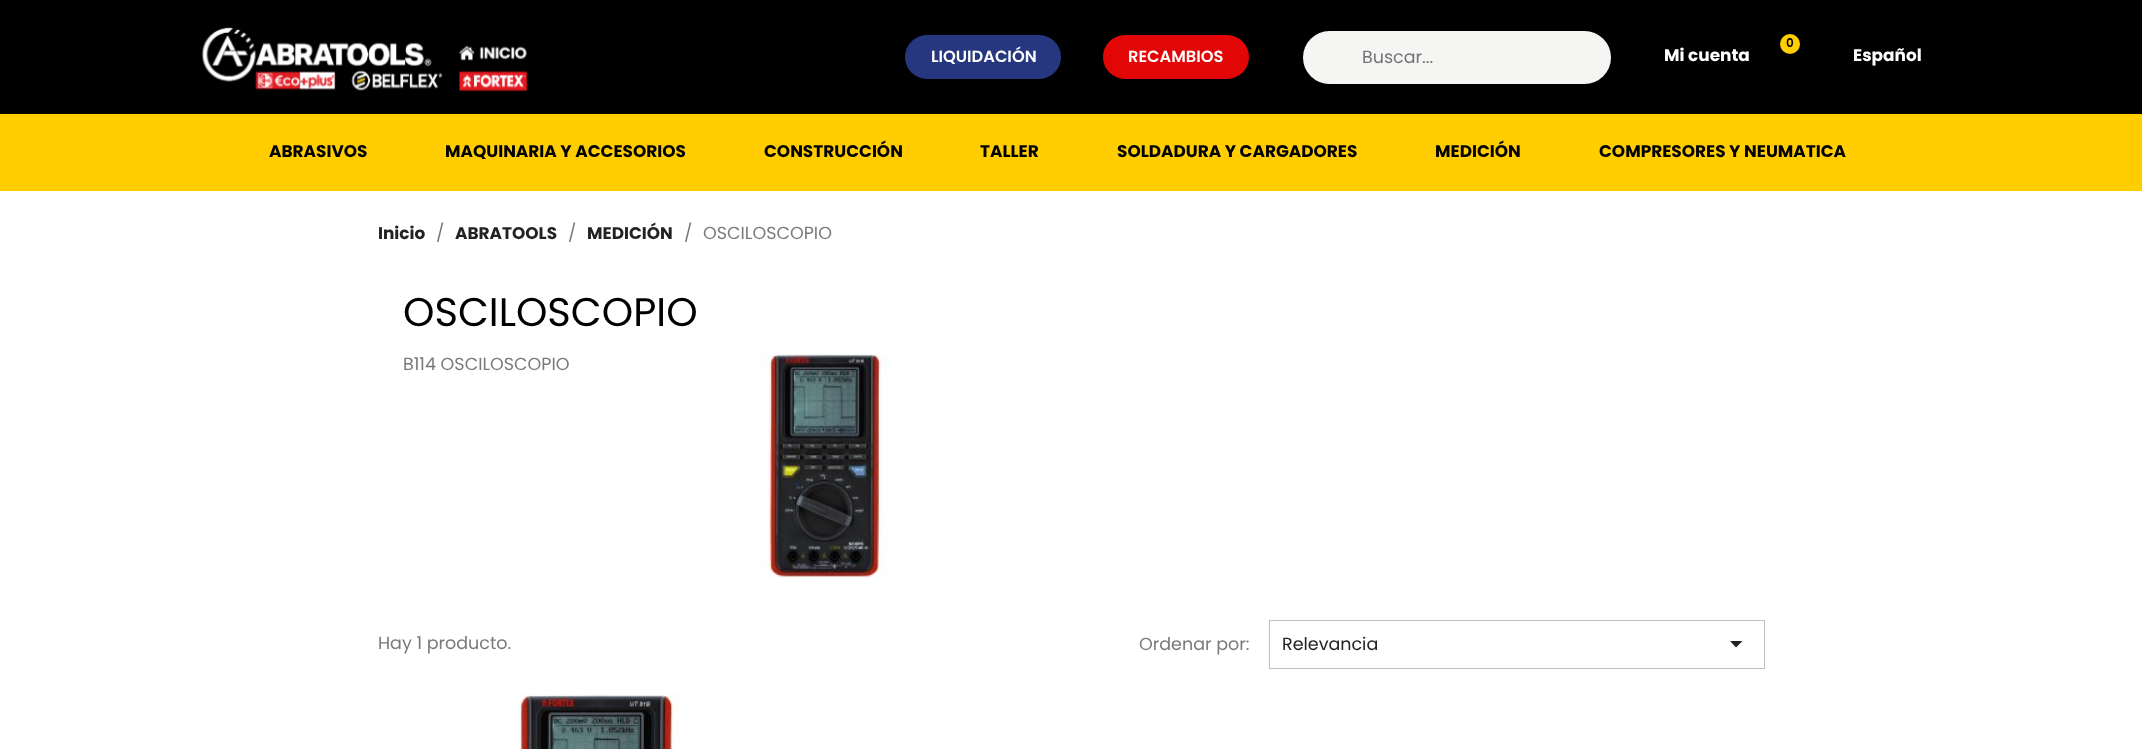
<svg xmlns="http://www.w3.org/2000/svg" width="2142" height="749">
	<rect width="100%" height="100%" fill="#FFFFFF" />
	<rect x="0" y="0" width="2142" height="114" fill="#000000" />
	<image x="201" y="27" width="327" height="65" href="assets/img1.png" />
	<rect x="905" y="35" width="156" height="44" rx="22" fill="#263780" />
	<text x="931" y="62" font-family="Poppins" font-size="16.25" font-weight="600" fill="#FFFFFF">LIQUIDACIÓN</text>
	<rect x="1103" y="35" width="146" height="44" rx="22" fill="#E30606" />
	<text x="1128" y="62" font-family="Poppins" font-size="16.25" font-weight="600" fill="#FFFFFF">RECAMBIOS</text>
	<circle cx="1790" cy="44" r="10" fill="#FFCD00" />
	<text x="1786" y="47" font-family="Poppins" font-size="12" font-weight="600" fill="#000000">0</text>
	<rect x="1303" y="31" width="308" height="53" rx="26.5" fill="#F5F6F4" />
	<text x="1362" y="63" font-family="Poppins" font-size="17.5" fill="#737474">Buscar...</text>
	<g font-family="Poppins" font-size="16.9" font-weight="700" fill="#FFFFFF">
		<text x="1664" y="61">Mi cuenta</text>
		<text x="1853" y="61">Español</text>
	</g>
	<rect x="0" y="114" width="2142" height="77" fill="#FFCD00" />
	<g font-family="Poppins" font-size="16.9" font-weight="700" fill="#000000">
		<text x="269" y="157">ABRASIVOS</text>
		<text x="445" y="157">MAQUINARIA Y ACCESORIOS</text>
		<text x="764" y="157">CONSTRUCCIÓN</text>
		<text x="980" y="157">TALLER</text>
		<text x="1117" y="157">SOLDADURA Y CARGADORES</text>
		<text x="1435" y="157">MEDICIÓN</text>
		<text x="1599" y="157">COMPRESORES Y NEUMATICA</text>
	</g>
	<text x="378" y="239" font-family="Poppins" font-size="16.9" font-weight="700" fill="#232323">Inicio</text>
	<text x="436" y="239" font-family="Poppins" font-size="17.5" fill="#7A7A7A">/</text>
	<text x="455" y="239" font-family="Poppins" font-size="16.9" font-weight="700" fill="#232323">ABRATOOLS</text>
	<text x="568" y="239" font-family="Poppins" font-size="17.5" fill="#7A7A7A">/</text>
	<text x="587" y="239" font-family="Poppins" font-size="16.9" font-weight="700" fill="#232323">MEDICIÓN</text>
	<g font-family="Poppins" font-size="17.5" fill="#7A7A7A">
		<text x="684" y="239">/</text>
		<text x="703" y="239">OSCILOSCOPIO</text>
	</g>
	<text x="403" y="326" font-family="Poppins" font-size="40" fill="#000000">OSCILOSCOPIO</text>
	<text x="403" y="370" font-family="Poppins" font-size="17.5" fill="#7A7A7A">B114 OSCILOSCOPIO</text>
	<image x="758" y="353" width="134" height="226" href="assets/img2.png" />
	<g font-family="Poppins" font-size="17.5" fill="#7A7A7A">
		<text x="378" y="649">Hay 1 producto.</text>
		<text x="1139" y="650">Ordenar por:</text>
	</g>
	<rect x="1269.5" y="620.5" width="495" height="48" fill="none" stroke="#BFBFBF" />
	<text x="1282" y="650" font-family="Poppins" font-size="17.5" fill="#232323">Relevancia</text>
	<path d="M1730 641H1742.5L1736 647.5Z" fill="#232323" />
	<image x="519" y="694" width="162" height="55" href="assets/img3.png" />
</svg>
